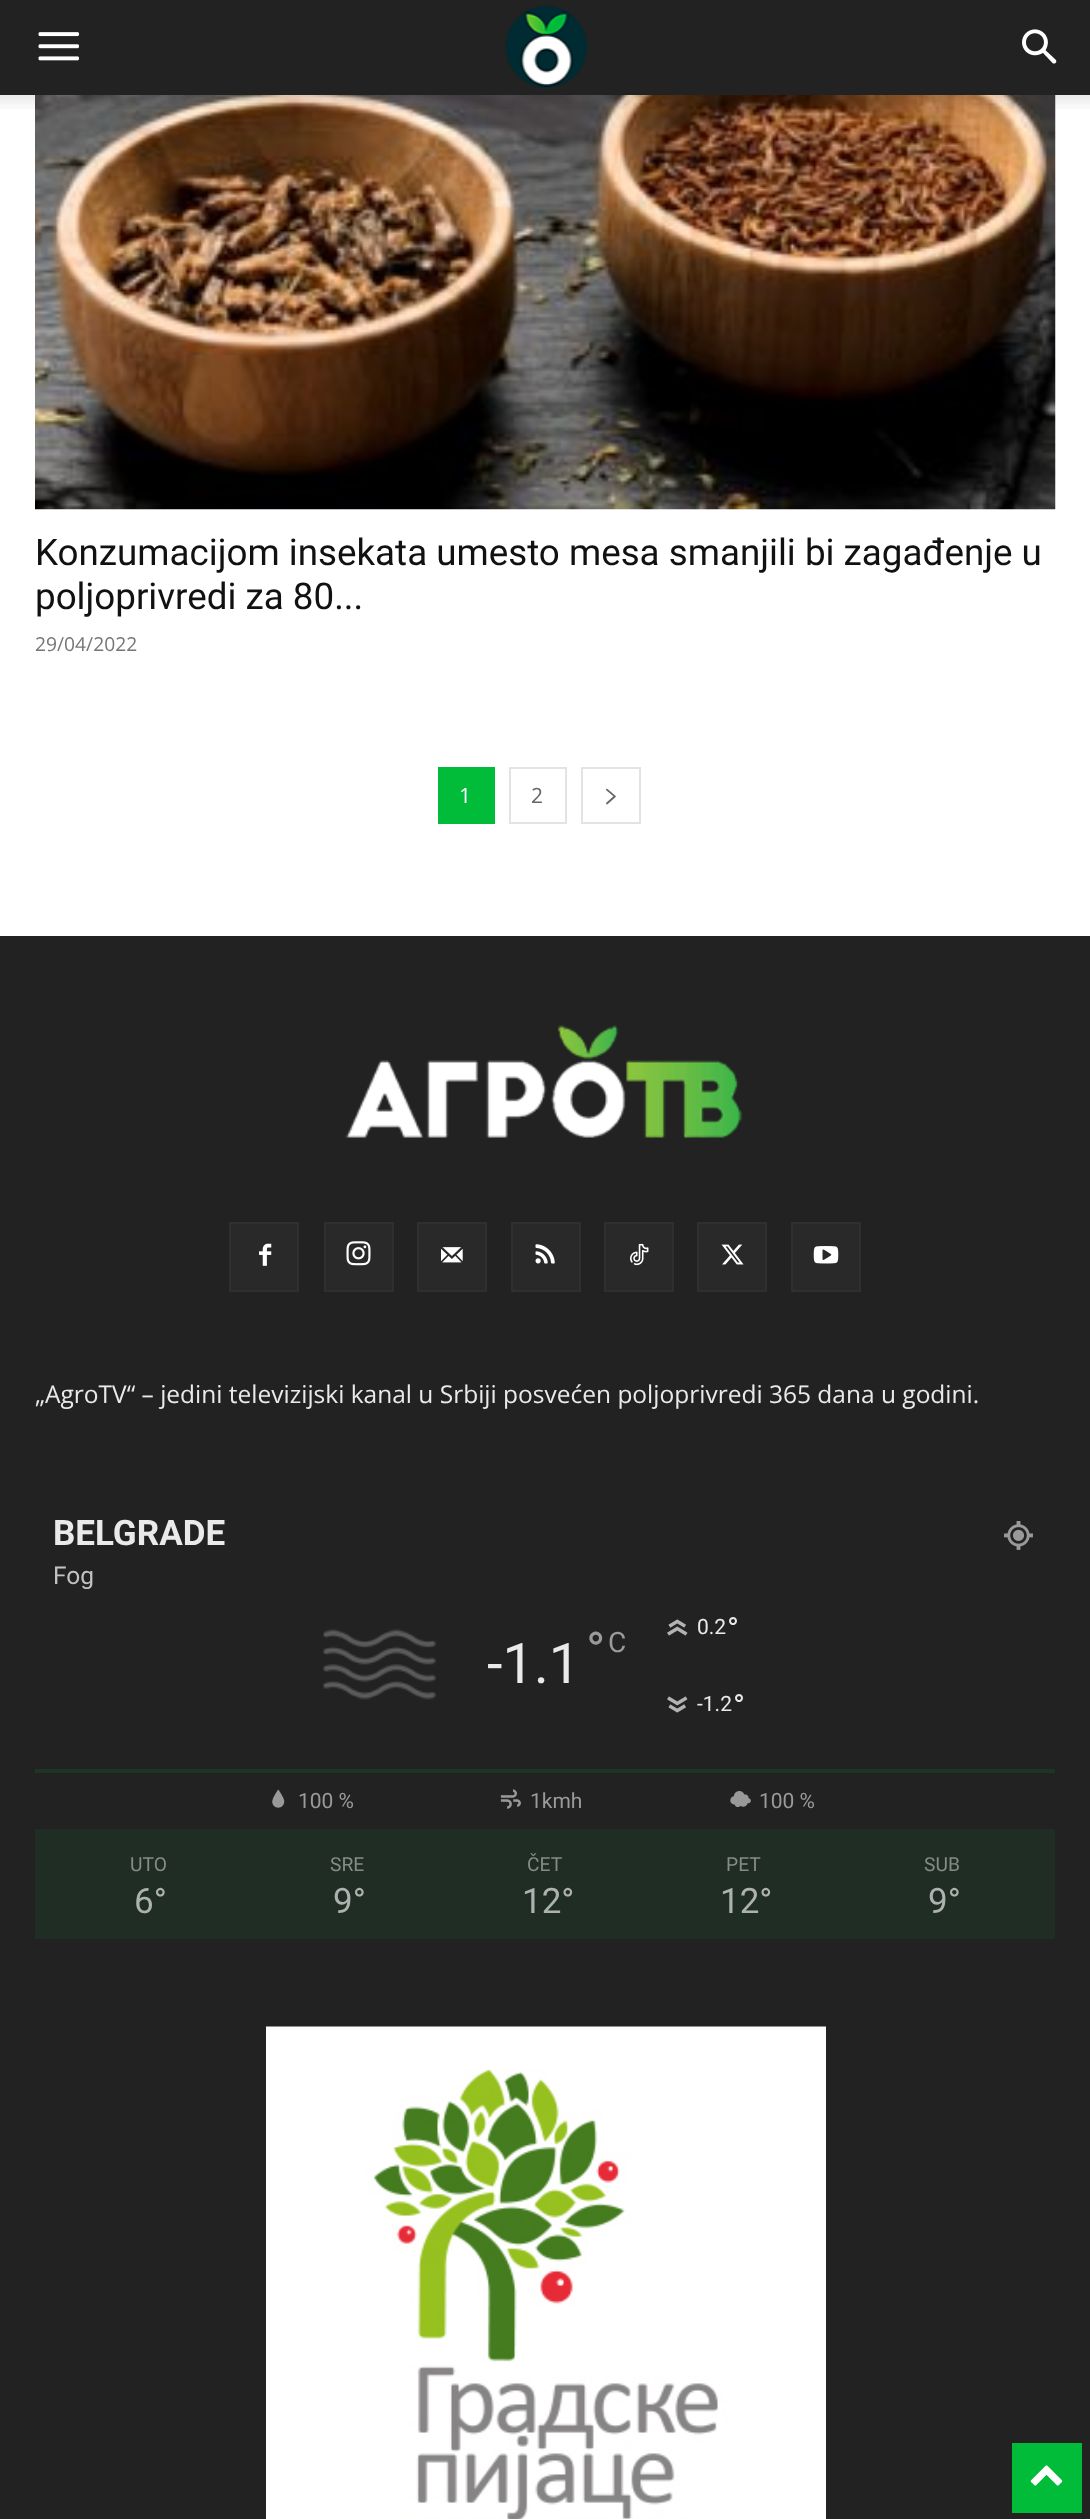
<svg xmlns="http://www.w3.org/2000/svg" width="1090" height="2519">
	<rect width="100%" height="100%" fill="#FFFFFF" />
	<rect x="0" y="0" width="1090" height="95" fill="#222222" />
	<image x="38" y="32" width="41" height="29" href="assets/img1.png" />
	<image x="505" y="5" width="83" height="83" href="assets/img2.png" />
	<image x="1022" y="29" width="35" height="35" href="assets/img3.png" />
	<image x="35" y="95" width="1021" height="415" href="assets/img5.png" />
	<image x="0" y="95" width="1090" height="14" href="assets/img4.png" />
	<g font-family="Roboto" font-size="36.75" fill="#111111">
		<text x="35" y="565">Konzumacijom insekata umesto mesa smanjili bi zagađenje u</text>
		<text x="35" y="609">poljoprivredi za 80...</text>
	</g>
	<text x="35" y="651" font-family="Open Sans" font-size="19.25" fill="#767676">29/04/2022</text>
	<rect x="438" y="767" width="57" height="57" fill="#00BC39" />
	<text x="459" y="803" font-family="Open Sans" font-size="21" fill="#FFFFFF">1</text>
	<rect x="510" y="768" width="56" height="55" fill="none" stroke="#E3E3E3" stroke-width="2" />
	<text x="531" y="803" font-family="Open Sans" font-size="21" fill="#666666">2</text>
	<rect x="582" y="768" width="58" height="55" fill="none" stroke="#E3E3E3" stroke-width="2" />
	<image x="606" y="788" width="10" height="17" href="assets/img6.png" />
	<rect x="0" y="936" width="1090" height="1583" fill="#222222" />
	<image x="344" y="1025" width="399" height="113" href="assets/img7.png" />
	<rect x="231" y="1224" width="66" height="66" fill="#292929" />
	<image x="259" y="1243" width="13" height="23" href="assets/img8.png" />
	<rect x="230" y="1223" width="68" height="68" fill="none" stroke="#2F2F2F" stroke-width="2" />
	<rect x="326" y="1224" width="66" height="66" fill="#292929" />
	<image x="346" y="1241" width="25" height="25" href="assets/img9.png" />
	<rect x="325" y="1223" width="68" height="68" fill="none" stroke="#2F2F2F" stroke-width="2" />
	<rect x="419" y="1224" width="66" height="66" fill="#292929" />
	<image x="441" y="1247" width="22" height="16" href="assets/img10.png" />
	<rect x="418" y="1223" width="68" height="68" fill="none" stroke="#2F2F2F" stroke-width="2" />
	<rect x="513" y="1224" width="66" height="66" fill="#292929" />
	<image x="535" y="1244" width="20" height="20" href="assets/img11.png" />
	<rect x="512" y="1223" width="68" height="68" fill="none" stroke="#2F2F2F" stroke-width="2" />
	<rect x="606" y="1224" width="66" height="66" fill="#292929" />
	<image x="630" y="1243" width="19" height="23" href="assets/img12.png" />
	<rect x="605" y="1223" width="68" height="68" fill="none" stroke="#2F2F2F" stroke-width="2" />
	<rect x="699" y="1224" width="66" height="66" fill="#292929" />
	<image x="721" y="1244" width="23" height="21" href="assets/img13.png" />
	<rect x="698" y="1223" width="68" height="68" fill="none" stroke="#2F2F2F" stroke-width="2" />
	<rect x="793" y="1224" width="66" height="66" fill="#292929" />
	<image x="813" y="1246" width="26" height="18" href="assets/img14.png" />
	<rect x="792" y="1223" width="68" height="68" fill="none" stroke="#2F2F2F" stroke-width="2" />
	<text x="35" y="1403" font-family="Open Sans" font-size="24.5" fill="#EAEAEA">„AgroTV“ – jedini televizijski kanal u Srbiji posvećen poljoprivredi 365 dana u godini.</text>
	<text x="53" y="1545" font-family="Roboto" font-size="35" font-weight="700" fill="#EAEAEA">BELGRADE</text>
	<image x="1004" y="1521" width="29" height="29" href="assets/img15.png" />
	<text x="53" y="1584" font-family="Roboto" font-size="24.5" fill="#C2C2C2">Fog</text>
	<image x="323" y="1629" width="114" height="71" href="assets/img16.png" />
	<text x="487" y="1683" font-family="Roboto" font-size="56" fill="#EAEAEA">-1.1</text>
	<text x="586" y="1669" font-family="Roboto" font-size="52" fill="#9A9A9A">°</text>
	<text x="608" y="1652" font-family="Roboto" font-size="28" fill="#9A9A9A">C</text>
	<image x="667" y="1619" width="21" height="17" href="assets/img17.png" />
	<text x="697" y="1634" font-family="Roboto" font-size="21" fill="#EAEAEA">0.2</text>
	<text x="727" y="1640" font-family="Roboto" font-size="32" fill="#EAEAEA">°</text>
	<image x="667" y="1696" width="21" height="17" href="assets/img18.png" />
	<text x="697" y="1711" font-family="Roboto" font-size="21" fill="#EAEAEA">-1.2</text>
	<text x="733" y="1717" font-family="Roboto" font-size="32" fill="#EAEAEA">°</text>
	<rect x="35" y="1769" width="1020" height="4" fill="#1E3425" />
	<image x="272" y="1789" width="13" height="19" href="assets/img19.png" />
	<text x="298" y="1808" font-family="Roboto" font-size="21" fill="#9A9A9A">100 %</text>
	<image x="500" y="1789" width="21" height="20" href="assets/img20.png" />
	<text x="530" y="1808" font-family="Roboto" font-size="21" fill="#9A9A9A">1kmh</text>
	<image x="730" y="1791" width="21" height="16" href="assets/img21.png" />
	<text x="759" y="1808" font-family="Roboto" font-size="21" fill="#9A9A9A">100 %</text>
	<rect x="35" y="1829" width="1020" height="110" fill="#202D24" />
	<text x="130" y="1871" font-family="Roboto" font-size="19.25" fill="#858C87">UTO</text>
	<text x="134" y="1913" font-family="Roboto" font-size="35" fill="#ADB1AF">6°</text>
	<text x="330" y="1871" font-family="Roboto" font-size="19.25" fill="#858C87">SRE</text>
	<text x="333" y="1913" font-family="Roboto" font-size="35" fill="#ADB1AF">9°</text>
	<text x="527" y="1871" font-family="Roboto" font-size="19.25" fill="#858C87">ČET</text>
	<text x="522" y="1913" font-family="Roboto" font-size="35" fill="#ADB1AF">12°</text>
	<text x="726" y="1871" font-family="Roboto" font-size="19.25" fill="#858C87">PET</text>
	<text x="720" y="1913" font-family="Roboto" font-size="35" fill="#ADB1AF">12°</text>
	<text x="924" y="1871" font-family="Roboto" font-size="19.25" fill="#858C87">SUB</text>
	<text x="928" y="1913" font-family="Roboto" font-size="35" fill="#ADB1AF">9°</text>
	<image x="266" y="2026" width="560" height="493" href="assets/img22.png" />
	<rect x="1012" y="2443" width="70" height="70" fill="#00BC39" />
	<image x="1030" y="2465" width="33" height="21" href="assets/img23.png" />
</svg>
